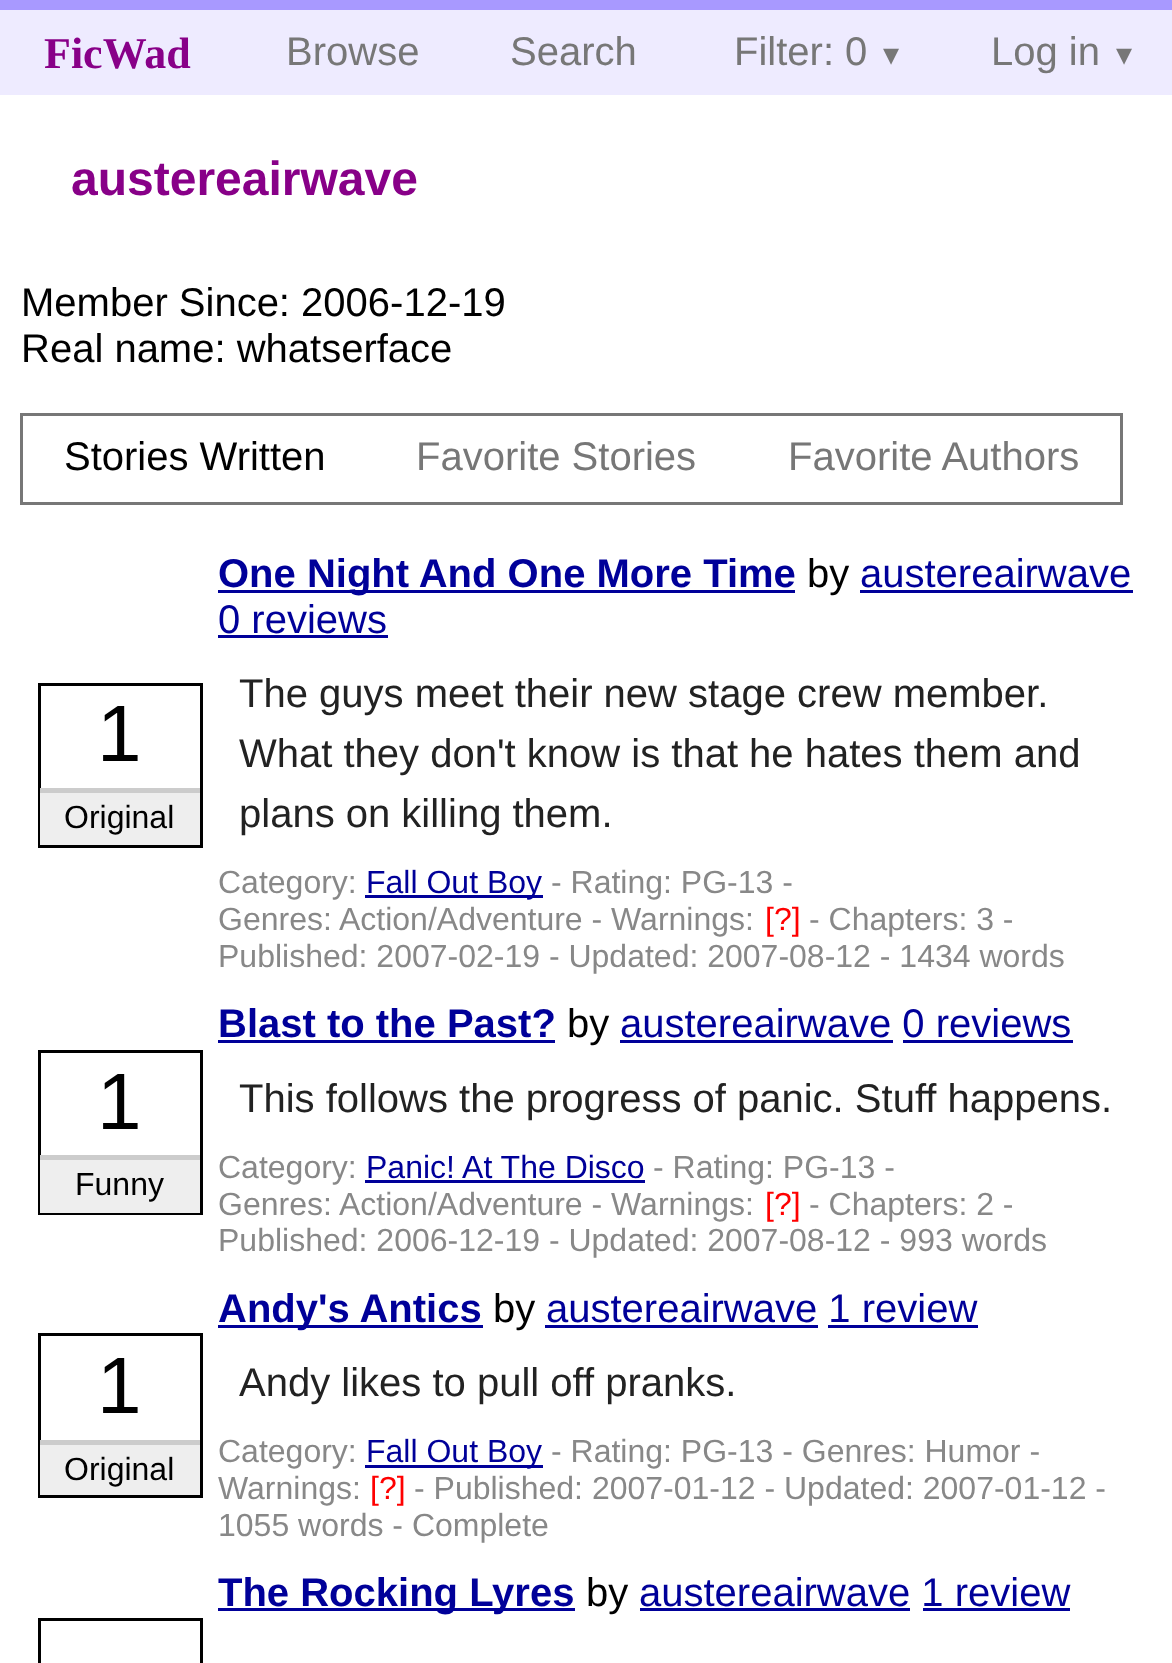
<svg xmlns="http://www.w3.org/2000/svg" width="1172" height="1663">
	<rect width="100%" height="100%" fill="#FFFFFF" />
	<rect x="0" y="10" width="1172" height="85" fill="#EEEBFF" />
	<rect x="0" y="0" width="1172" height="10" fill="#A899FF" />
	<text x="44" y="68" font-family="Liberation Serif" font-size="44" font-weight="700" fill="#880088">FicWad</text>
	<g font-family="Liberation Sans" font-size="40" fill="#777777">
		<text x="286" y="65">Browse</text>
		<text x="510" y="65">Search</text>
		<text x="734" y="65">Filter: 0</text>
	</g>
	<text x="883" y="65" font-family="DejaVu Sans" font-size="32" fill="#777777">▾</text>
	<text x="991" y="65" font-family="Liberation Sans" font-size="40" fill="#777777">Log in</text>
	<text x="1116" y="65" font-family="DejaVu Sans" font-size="32" fill="#777777">▾</text>
	<text x="71" y="195" font-family="Liberation Sans" font-size="48" font-weight="700" fill="#880088">austereairwave</text>
	<g font-family="Liberation Sans" font-size="40" fill="#000000">
		<text x="21" y="316">Member Since: 2006-12-19</text>
		<text x="21" y="362">Real name: whatserface</text>
	</g>
	<rect x="21.5" y="414.5" width="1100" height="89" fill="none" stroke="#777777" stroke-width="3" />
	<text x="64" y="470" font-family="Liberation Sans" font-size="40" fill="#000000">Stories Written</text>
	<g font-family="Liberation Sans" font-size="40" fill="#777777">
		<text x="416" y="470">Favorite Stories</text>
		<text x="788" y="470">Favorite Authors</text>
	</g>
	<rect x="218" y="590" width="577" height="3" fill="#000099" />
	<text x="218" y="587" font-family="Liberation Sans" font-size="40" font-weight="700" fill="#000099">One Night And One More Time</text>
	<text x="807" y="587" font-family="Liberation Sans" font-size="40" fill="#000000">by</text>
	<text x="860" y="587" font-family="Liberation Sans" font-size="40" fill="#000099">austereairwave</text>
	<rect x="860" y="590" width="273" height="3" fill="#000099" />
	<text x="218" y="633" font-family="Liberation Sans" font-size="40" fill="#000099">0 reviews</text>
	<rect x="218" y="635" width="170" height="3" fill="#000099" />
	<rect x="39.5" y="684.5" width="162" height="162" fill="none" stroke="#000000" stroke-width="3" />
	<text x="97" y="761" font-family="Liberation Sans" font-size="80" fill="#000000">1</text>
	<rect x="40" y="793" width="160" height="52" fill="#EEEEEE" />
	<rect x="40" y="788" width="160" height="5" fill="#CCCCCC" />
	<text x="64" y="828" font-family="Liberation Sans" font-size="32" fill="#000000">Original</text>
	<g font-family="Liberation Sans" font-size="40" fill="#222222">
		<text x="239" y="707">The guys meet their new stage crew member.</text>
		<text x="239" y="767">What they don't know is that he hates them and</text>
		<text x="239" y="827">plans on killing them.</text>
	</g>
	<text x="218" y="893" font-family="Liberation Sans" font-size="32" fill="#888888">Category:</text>
	<rect x="365" y="895" width="178" height="3" fill="#000099" />
	<text x="366" y="893" font-family="Liberation Sans" font-size="32" fill="#000099">Fall Out Boy</text>
	<g font-family="Liberation Sans" font-size="32" fill="#888888">
		<text x="551" y="893">- Rating: PG-13 -</text>
		<text x="218" y="930">Genres: Action/Adventure - Warnings:</text>
	</g>
	<text x="765" y="930" font-family="Liberation Sans" font-size="32" fill="#FF0000">[?]</text>
	<g font-family="Liberation Sans" font-size="32" fill="#888888">
		<text x="809" y="930">- Chapters: 3 -</text>
		<text x="218" y="967">Published: 2007-02-19 - Updated: 2007-08-12 - 1434 words</text>
	</g>
	<text x="218" y="1037" font-family="Liberation Sans" font-size="40" font-weight="700" fill="#000099">Blast to the Past?</text>
	<rect x="218" y="1040" width="337" height="3" fill="#000099" />
	<text x="567" y="1037" font-family="Liberation Sans" font-size="40" fill="#000000">by</text>
	<text x="620" y="1037" font-family="Liberation Sans" font-size="40" fill="#000099">austereairwave 0 reviews</text>
	<rect x="620" y="1040" width="273" height="3" fill="#000099" />
	<rect x="903" y="1040" width="170" height="3" fill="#000099" />
	<rect x="39.5" y="1051.5" width="162" height="162" fill="none" stroke="#000000" stroke-width="3" />
	<text x="97" y="1129" font-family="Liberation Sans" font-size="80" fill="#000000">1</text>
	<rect x="40" y="1160" width="160" height="53" fill="#EEEEEE" />
	<rect x="40" y="1155" width="160" height="5" fill="#CCCCCC" />
	<text x="75" y="1195" font-family="Liberation Sans" font-size="32" fill="#000000">Funny</text>
	<text x="239" y="1112" font-family="Liberation Sans" font-size="40" fill="#222222">This follows the progress of panic. Stuff happens.</text>
	<text x="218" y="1178" font-family="Liberation Sans" font-size="32" fill="#888888">Category:</text>
	<text x="366" y="1178" font-family="Liberation Sans" font-size="32" fill="#000099">Panic! At The Disco</text>
	<rect x="365" y="1180" width="280" height="3" fill="#000099" />
	<g font-family="Liberation Sans" font-size="32" fill="#888888">
		<text x="653" y="1178">- Rating: PG-13 -</text>
		<text x="218" y="1215">Genres: Action/Adventure - Warnings:</text>
	</g>
	<text x="765" y="1215" font-family="Liberation Sans" font-size="32" fill="#FF0000">[?]</text>
	<g font-family="Liberation Sans" font-size="32" fill="#888888">
		<text x="809" y="1215">- Chapters: 2 -</text>
		<text x="218" y="1251">Published: 2006-12-19 - Updated: 2007-08-12 - 993 words</text>
	</g>
	<rect x="218" y="1325" width="265" height="3" fill="#000099" />
	<text x="218" y="1322" font-family="Liberation Sans" font-size="40" font-weight="700" fill="#000099">Andy's Antics</text>
	<text x="493" y="1322" font-family="Liberation Sans" font-size="40" fill="#000000">by</text>
	<text x="546" y="1322" font-family="Liberation Sans" font-size="40" fill="#000099">austereairwave 1 review</text>
	<rect x="545" y="1325" width="273" height="3" fill="#000099" />
	<rect x="828" y="1325" width="150" height="3" fill="#000099" />
	<rect x="39.5" y="1334.5" width="162" height="162" fill="none" stroke="#000000" stroke-width="3" />
	<text x="97" y="1413" font-family="Liberation Sans" font-size="80" fill="#000000">1</text>
	<rect x="40" y="1445" width="160" height="50" fill="#EEEEEE" />
	<rect x="40" y="1440" width="160" height="5" fill="#CCCCCC" />
	<text x="64" y="1480" font-family="Liberation Sans" font-size="32" fill="#000000">Original</text>
	<text x="239" y="1396" font-family="Liberation Sans" font-size="40" fill="#222222">Andy likes to pull off pranks.</text>
	<text x="218" y="1462" font-family="Liberation Sans" font-size="32" fill="#888888">Category:</text>
	<rect x="365" y="1465" width="178" height="3" fill="#000099" />
	<text x="366" y="1462" font-family="Liberation Sans" font-size="32" fill="#000099">Fall Out Boy</text>
	<g font-family="Liberation Sans" font-size="32" fill="#888888">
		<text x="551" y="1462">- Rating: PG-13 - Genres: Humor -</text>
		<text x="218" y="1499">Warnings:</text>
	</g>
	<text x="370" y="1499" font-family="Liberation Sans" font-size="32" fill="#FF0000">[?]</text>
	<g font-family="Liberation Sans" font-size="32" fill="#888888">
		<text x="414" y="1499">- Published: 2007-01-12 - Updated: 2007-01-12 -</text>
		<text x="218" y="1536">1055 words - Complete</text>
	</g>
	<rect x="218" y="1608" width="357" height="3" fill="#000099" />
	<text x="218" y="1606" font-family="Liberation Sans" font-size="40" font-weight="700" fill="#000099">The Rocking Lyres</text>
	<text x="586" y="1606" font-family="Liberation Sans" font-size="40" fill="#000000">by</text>
	<text x="639" y="1606" font-family="Liberation Sans" font-size="40" fill="#000099">austereairwave 1 review</text>
	<rect x="640" y="1608" width="270" height="3" fill="#000099" />
	<rect x="923" y="1608" width="147" height="3" fill="#000099" />
	<rect x="39.5" y="1619.5" width="162" height="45" fill="none" stroke="#000000" stroke-width="3" />
</svg>
